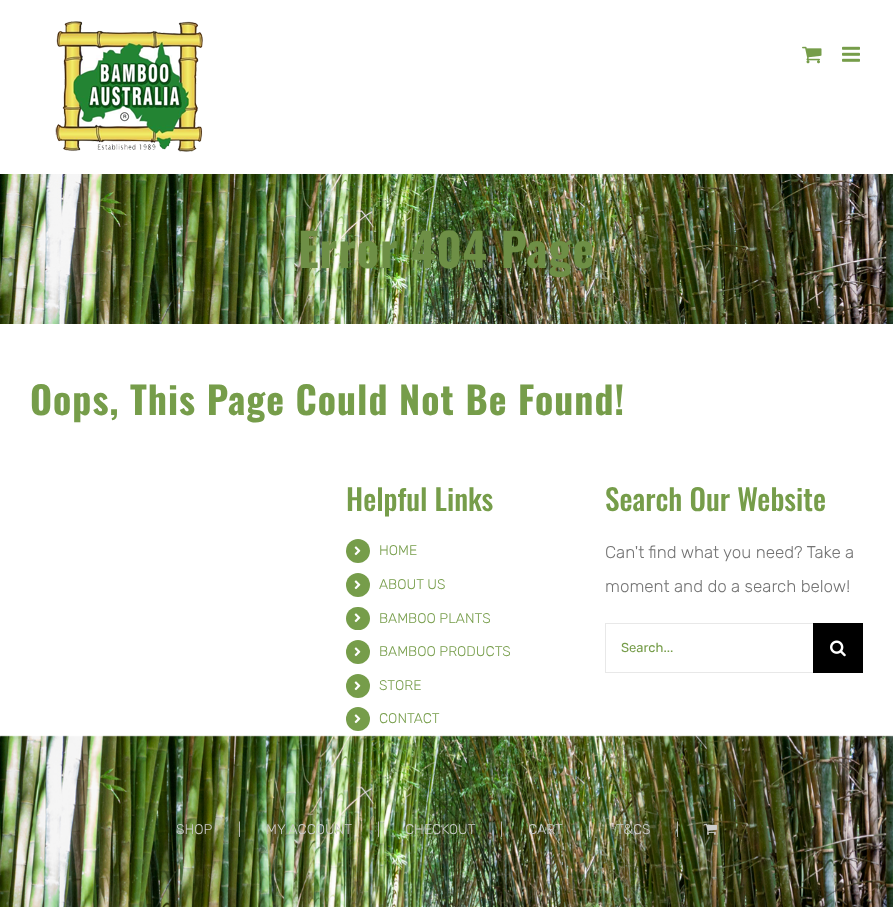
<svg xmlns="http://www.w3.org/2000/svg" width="893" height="907">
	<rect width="100%" height="100%" fill="#FFFFFF" />
	<image x="55" y="21" width="148" height="131" href="assets/img1.png" />
	<image x="802" y="46" width="20" height="18" href="assets/img2.png" />
	<image x="842" y="46" width="18" height="16" href="assets/img3.png" />
	<image x="0" y="174" width="893" height="150" href="assets/img4.png" />
	<text x="298" y="268" font-family="Oswald" font-size="46" font-weight="700" letter-spacing="1" fill="#6E8F46">Error 404 Page</text>
	<text x="30" y="415" font-family="Oswald" font-size="37.75" font-weight="700" letter-spacing="1" fill="#769D4A">Oops, This Page Could Not Be Found!</text>
	<text x="346" y="511" font-family="Oswald" font-size="29.25" font-weight="500" fill="#769D4A">Helpful Links</text>
	<circle cx="358" cy="551" r="12" fill="#769D4A" />
	<image x="354" y="546" width="7" height="10" href="assets/img5.png" />
	<text x="379" y="555" font-family="Rubik" font-size="14" font-weight="300" fill="#769D4A">HOME</text>
	<circle cx="358" cy="585" r="12" fill="#769D4A" />
	<image x="354" y="580" width="7" height="10" href="assets/img5.png" />
	<text x="379" y="589" font-family="Rubik" font-size="14" font-weight="300" fill="#769D4A">ABOUT US</text>
	<rect x="346" y="607" width="24" height="23" rx="11.5" fill="#769D4A" />
	<image x="354" y="613" width="7" height="10" href="assets/img5.png" />
	<text x="379" y="623" font-family="Rubik" font-size="14" font-weight="300" fill="#769D4A">BAMBOO PLANTS</text>
	<circle cx="358" cy="652" r="12" fill="#769D4A" />
	<image x="354" y="647" width="7" height="10" href="assets/img5.png" />
	<text x="379" y="656" font-family="Rubik" font-size="14" font-weight="300" fill="#769D4A">BAMBOO PRODUCTS</text>
	<circle cx="358" cy="686" r="12" fill="#769D4A" />
	<image x="354" y="681" width="7" height="10" href="assets/img5.png" />
	<text x="379" y="690" font-family="Rubik" font-size="14" font-weight="300" fill="#769D4A">STORE</text>
	<circle cx="358" cy="719" r="12" fill="#769D4A" />
	<image x="354" y="714" width="7" height="10" href="assets/img5.png" />
	<text x="379" y="723" font-family="Rubik" font-size="14" font-weight="300" fill="#769D4A">CONTACT</text>
	<text x="605" y="511" font-family="Oswald" font-size="29.25" font-weight="500" fill="#769D4A">Search Our Website</text>
	<g font-family="Rubik" font-size="17" font-weight="300" fill="#747474">
		<text x="605" y="558">Can't find what you need? Take a</text>
		<text x="605" y="592">moment and do a search below!</text>
	</g>
	<rect x="605" y="623" width="208" height="1" fill="#E8E8E8" />
	<rect x="605" y="672" width="208" height="1" fill="#E8E8E8" />
	<rect x="605" y="623" width="1" height="50" fill="#E8E8E8" />
	<text x="621" y="652" font-family="Rubik" font-size="13" fill="#769D4A">Search...</text>
	<rect x="813" y="623" width="50" height="50" fill="#000000" />
	<image x="830" y="640" width="16" height="17" href="assets/img6.png" />
	<image x="0" y="735" width="893" height="172" href="assets/img7.png" />
	<g font-family="Rubik" font-size="14" font-weight="300" fill="#CCCCCC">
		<text x="176" y="834">SHOP</text>
		<text x="238" y="834">|</text>
		<text x="266" y="834">MY ACCOUNT</text>
		<text x="377" y="834">|</text>
		<text x="405" y="834">CHECKOUT</text>
		<text x="500" y="834">|</text>
		<text x="528" y="834">CART</text>
		<text x="588" y="834">|</text>
		<text x="616" y="834">T&amp;CS</text>
		<text x="676" y="834">|</text>
	</g>
	<image x="704" y="823" width="13" height="12" href="assets/img8.png" />
</svg>
